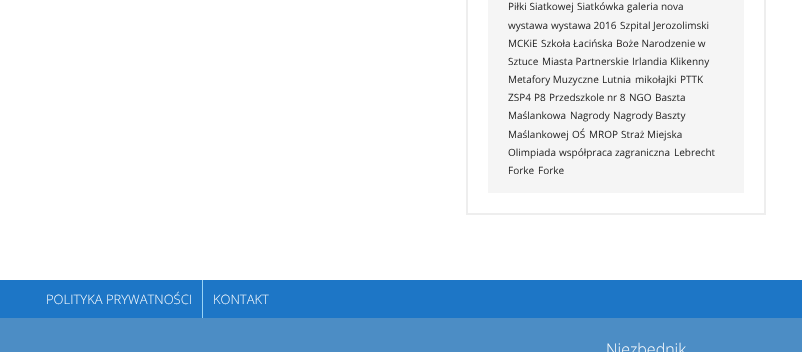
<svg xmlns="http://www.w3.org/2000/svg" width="802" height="352">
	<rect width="100%" height="100%" fill="#FFFFFF" />
	<rect x="467" y="-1" width="298" height="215" fill="none" stroke="#EEEEEE" stroke-width="2" />
	<rect x="488" y="0" width="256" height="193" fill="#F5F5F5" />
	<g font-family="Open Sans" font-size="10" fill="#222222">
		<text x="508" y="10">Piłki Siatkowej</text>
		<text x="577" y="10">Siatkówka</text>
		<text x="627" y="10">galeria nova</text>
		<text x="508" y="29">wystawa</text>
		<text x="551" y="29">wystawa 2016</text>
		<text x="620" y="29">Szpital Jerozolimski</text>
		<text x="508" y="47">MCKiE</text>
		<text x="541" y="47">Szkoła Łacińska</text>
		<text x="616" y="47">Boże Narodzenie w</text>
		<text x="508" y="65">Sztuce</text>
		<text x="542" y="65">Miasta Partnerskie</text>
		<text x="632" y="65">Irlandia Klikenny</text>
		<text x="508" y="83">Metafory Muzyczne</text>
		<text x="602" y="83">Lutnia</text>
		<text x="635" y="83">mikołajki</text>
		<text x="680" y="83">PTTK</text>
		<text x="508" y="101">ZSP4</text>
		<text x="534" y="101">P8</text>
		<text x="549" y="101">Przedszkole nr 8</text>
		<text x="629" y="101">NGO</text>
		<text x="655" y="101">Baszta</text>
		<text x="508" y="119">Maślankowa</text>
		<text x="570" y="119">Nagrody</text>
		<text x="613" y="119">Nagrody Baszty</text>
		<text x="508" y="138">Maślankowej</text>
		<text x="572" y="138">OŚ</text>
		<text x="589" y="138">MROP</text>
		<text x="621" y="138">Straż Miejska</text>
		<text x="508" y="156">Olimpiada</text>
		<text x="559" y="156">współpraca zagraniczna</text>
		<text x="674" y="156">Lebrecht</text>
		<text x="508" y="174">Forke</text>
		<text x="538" y="174">Forke</text>
	</g>
	<rect x="0" y="280" width="802" height="38" fill="#1D76C6" />
	<text x="46" y="304" font-family="Open Sans" font-size="13" font-weight="300" fill="#FFFFFF">POLITYKA PRYWATNOŚCI</text>
	<rect x="202" y="280" width="1" height="38" fill="#99D4F6" />
	<text x="213" y="304" font-family="Open Sans" font-size="13" font-weight="300" fill="#FFFFFF">KONTAKT</text>
	<rect x="0" y="318" width="802" height="34" fill="#4C8DC5" />
	<text x="606" y="355" font-family="Open Sans" font-size="16" font-weight="300" fill="#FFFFFF">Niezbędnik</text>
</svg>
